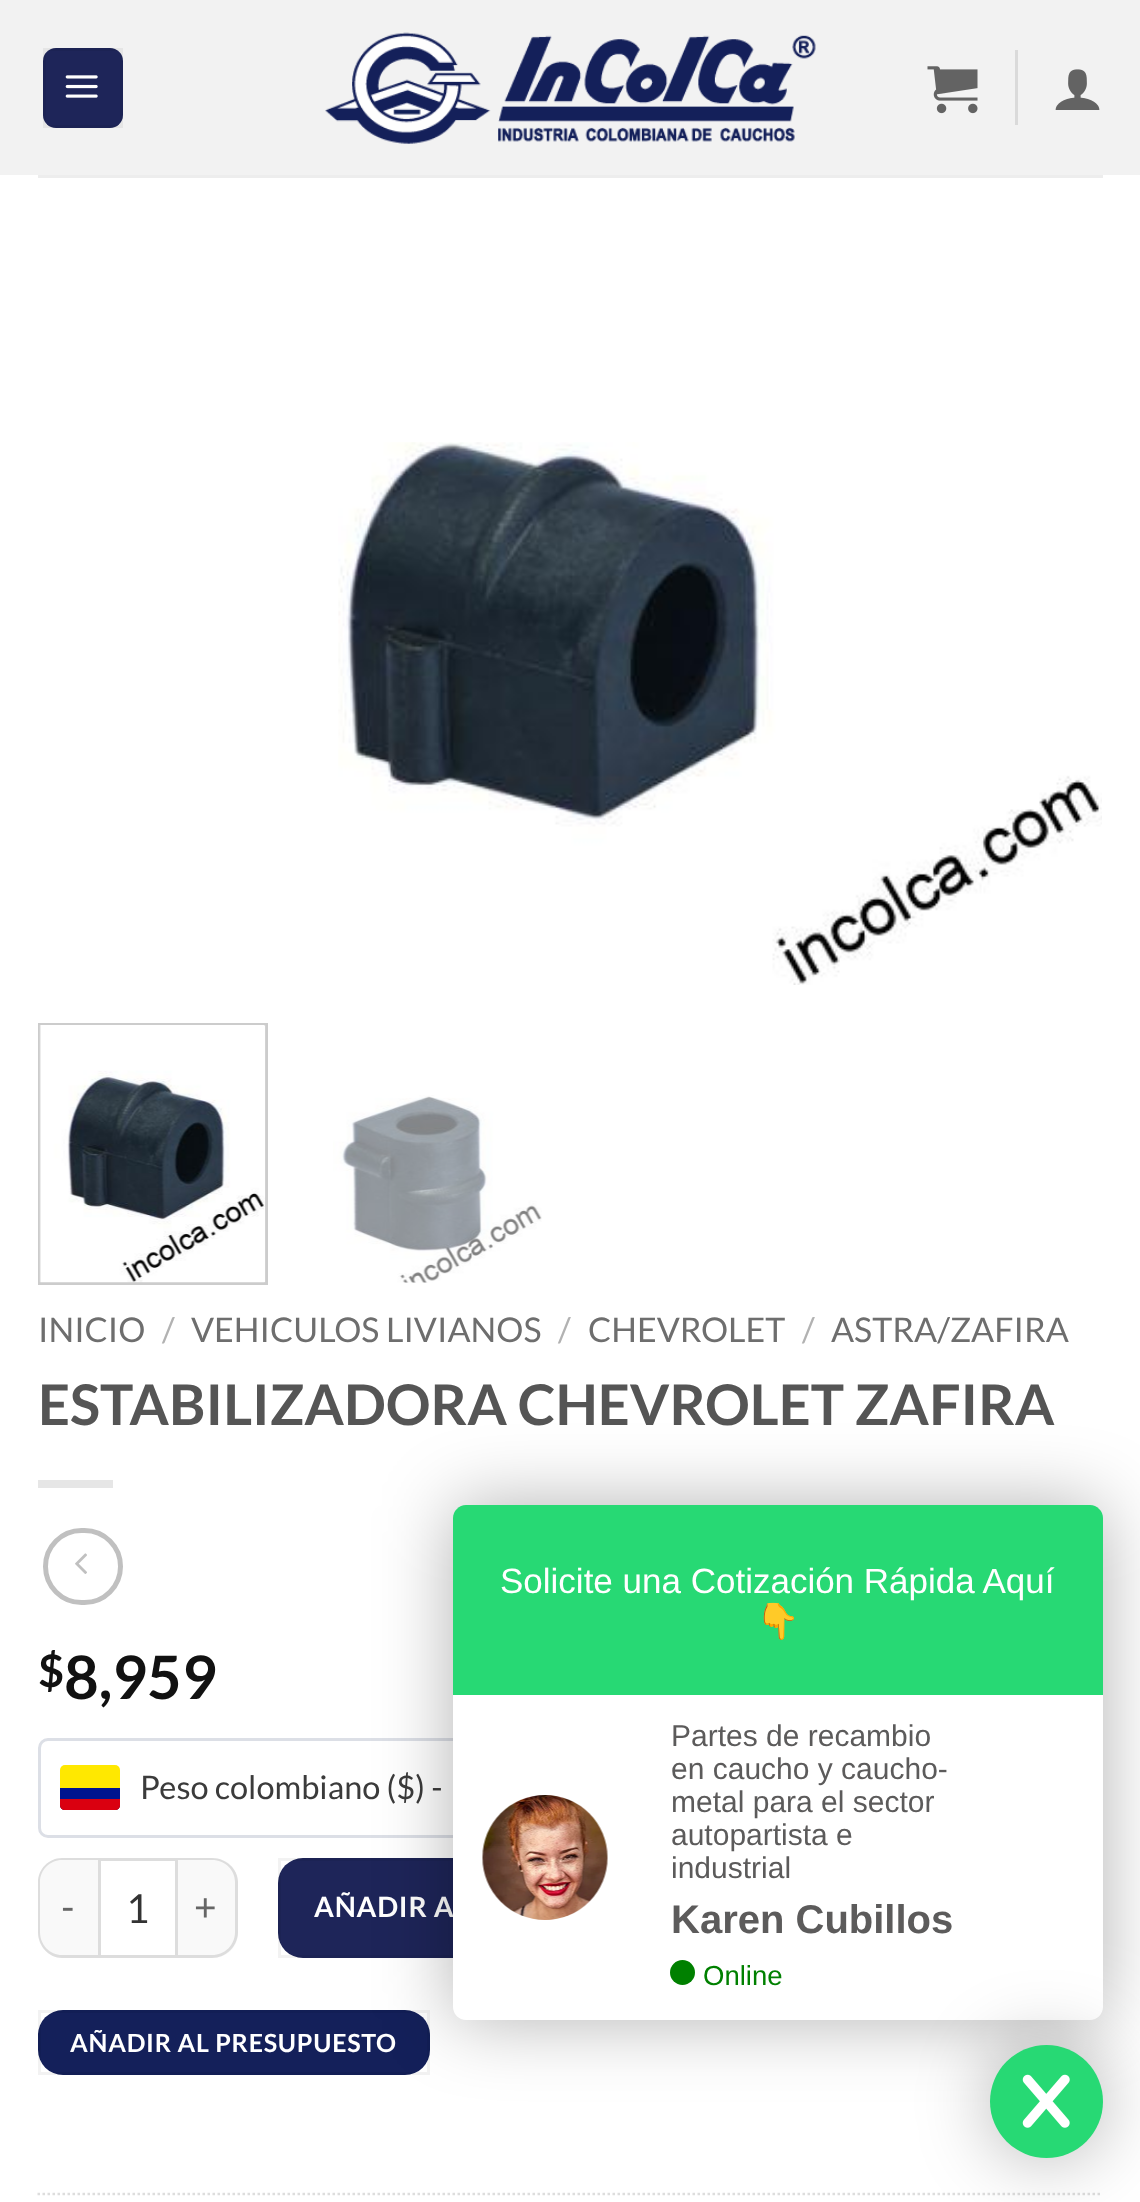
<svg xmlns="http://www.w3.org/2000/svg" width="1140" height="2202">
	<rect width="100%" height="100%" fill="#FFFFFF" />
	<rect x="0" y="0" width="1140" height="175" fill="#F2F2F2" />
	<rect x="43" y="48" width="80" height="80" rx="13" fill="#1E2559" />
	<rect x="44.5" y="49.5" width="77" height="77" fill="none" stroke="#000000" stroke-opacity="0.05" stroke-width="3" />
	<image x="65" y="75" width="33" height="23" href="assets/img1.png" />
	<image x="325" y="32" width="491" height="112" href="assets/img2.png" />
	<image x="927" y="66" width="51" height="48" href="assets/img3.png" />
	<rect x="1015" y="50" width="3" height="75" fill="#DADADA" />
	<image x="1055" y="69" width="45" height="41" href="assets/img4.png" />
	<rect x="38" y="175" width="1065" height="3" fill="#EDEDED" />
	<image x="338" y="442" width="764" height="543" href="assets/img5.png" />
	<rect x="39.5" y="1024.5" width="227" height="259" fill="none" stroke="#CCCCCC" stroke-width="3" />
	<image x="39" y="1025" width="227" height="258" href="assets/img6.png" />
	<image x="333" y="1095" width="209" height="188" href="assets/img7.png" />
	<text x="38" y="1342" font-family="Lato" font-size="34" fill="#6E6E6E">INICIO</text>
	<text x="162" y="1342" font-family="Lato" font-size="34" fill="#B2B2B2">/</text>
	<text x="191" y="1342" font-family="Lato" font-size="34" fill="#6E6E6E">VEHICULOS LIVIANOS</text>
	<text x="558" y="1342" font-family="Lato" font-size="34" fill="#B2B2B2">/</text>
	<text x="588" y="1342" font-family="Lato" font-size="34" fill="#6E6E6E">CHEVROLET</text>
	<text x="802" y="1342" font-family="Lato" font-size="34" fill="#B2B2B2">/</text>
	<text x="831" y="1342" font-family="Lato" font-size="34" fill="#6E6E6E">ASTRA/ZAFIRA</text>
	<text x="38" y="1425" font-family="Lato" font-size="56" font-weight="700" fill="#555555">ESTABILIZADORA CHEVROLET ZAFIRA</text>
	<rect x="38" y="1480" width="75" height="8" fill="#E6E6E6" />
	<rect x="45.5" y="1530.5" width="75" height="72" rx="36" fill="none" stroke="#C0C0C0" stroke-width="5" />
	<image x="75" y="1553" width="12" height="21" href="assets/img8.png" />
	<text x="38" y="1687" font-family="Lato" font-size="45" font-weight="700" fill="#111111">$</text>
	<text x="64" y="1699" font-family="Lato" font-size="60" font-weight="700" fill="#111111">8,959</text>
	<rect x="39.5" y="1739.5" width="672" height="97" rx="8.5" fill="none" stroke="#DCDFE6" stroke-width="3" />
	<rect x="60" y="1765" width="60" height="45" rx="5" fill="#FFE800" />
	<path d="M60 1788H120V1805C120 1808 118 1810 115 1810H65C62 1810 60 1808 60 1805Z" fill="#00148E" />
	<path d="M60 1799H120V1805C120 1808 118 1810 115 1810H65C62 1810 60 1808 60 1805Z" fill="#DA0010" />
	<text x="140" y="1799" font-family="Lato" font-size="32.5" fill="#3B3B3B">Peso colombiano ($) -</text>
	<path d="M63 1858H98V1958H63C49 1958 38 1947 38 1933V1883C38 1869 49 1858 63 1858Z" fill="#F9F9F9" />
	<path d="M62 1858H98V1958H62C49 1958 38 1946 38 1932V1882C38 1869 49 1858 62 1858ZM62 1860H98V1955H62C50 1955 40 1945 40 1932V1882C40 1870 50 1860 62 1860Z" fill="#DDDDDD" fill-rule="evenodd" />
	<text x="61" y="1921" font-family="Lato" font-size="39" letter-spacing="1" fill="#666666">-</text>
	<rect x="99.5" y="1859.5" width="77" height="97" fill="none" stroke="#DDDDDD" stroke-width="3" />
	<text x="126" y="1923" font-family="Lato" font-size="40" fill="#333333">1</text>
	<path d="M178 1858H213C227 1858 238 1869 238 1883V1933C238 1947 227 1958 213 1958H178Z" fill="#F9F9F9" />
	<path d="M178 1858H212C226 1858 238 1869 238 1882V1932C238 1946 226 1958 212 1958H178ZM178 1860H212C225 1860 235 1870 235 1882V1932C235 1945 225 1955 212 1955H178Z" fill="#DDDDDD" fill-rule="evenodd" />
	<text x="194" y="1921" font-family="Lato" font-size="39" letter-spacing="1" fill="#666666">+</text>
	<rect x="278" y="1858" width="362" height="100" rx="25" fill="#1E2559" />
	<rect x="279.5" y="1859.5" width="359" height="97" fill="none" stroke="#000000" stroke-opacity="0.05" stroke-width="3" />
	<text x="314" y="1917" font-family="Lato" font-size="28" font-weight="700" letter-spacing="0.75" fill="#FFFFFF">AÑADIR A</text>
	<rect x="38" y="2010" width="392" height="65" rx="25" fill="#14205A" />
	<rect x="39.5" y="2011.5" width="389" height="62" fill="none" stroke="#000000" stroke-opacity="0.05" stroke-width="3" />
	<text x="70" y="2052" font-family="Lato" font-size="25" font-weight="700" letter-spacing="0.75" fill="#FFFFFF">AÑADIR AL PRESUPUESTO</text>
	<path d="M37.5 2194H1102.5" fill="none" stroke="#DDDDDD" stroke-width="2.5" stroke-dasharray="2.5 2.5" />
	<rect x="453" y="1505" width="650" height="515" rx="13" fill="#000000" fill-opacity="0.3" filter="blur(37.5px)" />
	<path d="M466 1505H1090C1097 1505 1103 1511 1103 1518V1695H453V1518C453 1511 459 1505 466 1505Z" fill="#27D974" />
	<text x="500" y="1593" font-family="Liberation Sans" font-size="35" fill="#FFFFFF">Solicite una Cotización Rápida Aquí</text>
	<text x="756" y="1633" font-family="Noto Color Emoji" font-size="35" fill="#FFFFFF">👇</text>
	<path d="M453 1695H1103V2007C1103 2014 1097 2020 1090 2020H466C459 2020 453 2014 453 2007Z" fill="#FFFFFF" />
	<image x="482" y="1795" width="126" height="125" href="assets/img9.png" />
	<g font-family="Liberation Sans" font-size="30" fill="#5C5B5B">
		<text x="671" y="1746">Partes de recambio</text>
		<text x="671" y="1779">en caucho y caucho-</text>
		<text x="671" y="1812">metal para el sector</text>
		<text x="671" y="1845">autopartista e</text>
		<text x="671" y="1878">industrial</text>
	</g>
	<text x="671" y="1933" font-family="Liberation Sans" font-size="40" font-weight="700" fill="#5C5B5B">Karen Cubillos</text>
	<circle cx="682.5" cy="1972.5" r="12.5" fill="#008000" />
	<text x="703" y="1985" font-family="Liberation Sans" font-size="27.5" fill="#008000">Online</text>
	<rect x="990" y="2045" width="113" height="113" rx="56.5" fill="#000000" fill-opacity="0.3" filter="blur(37.5px)" />
	<circle cx="1046.5" cy="2101.5" r="56.5" fill="#27D974" />
	<image x="1022" y="2074" width="48" height="54" href="assets/img10.png" />
</svg>
